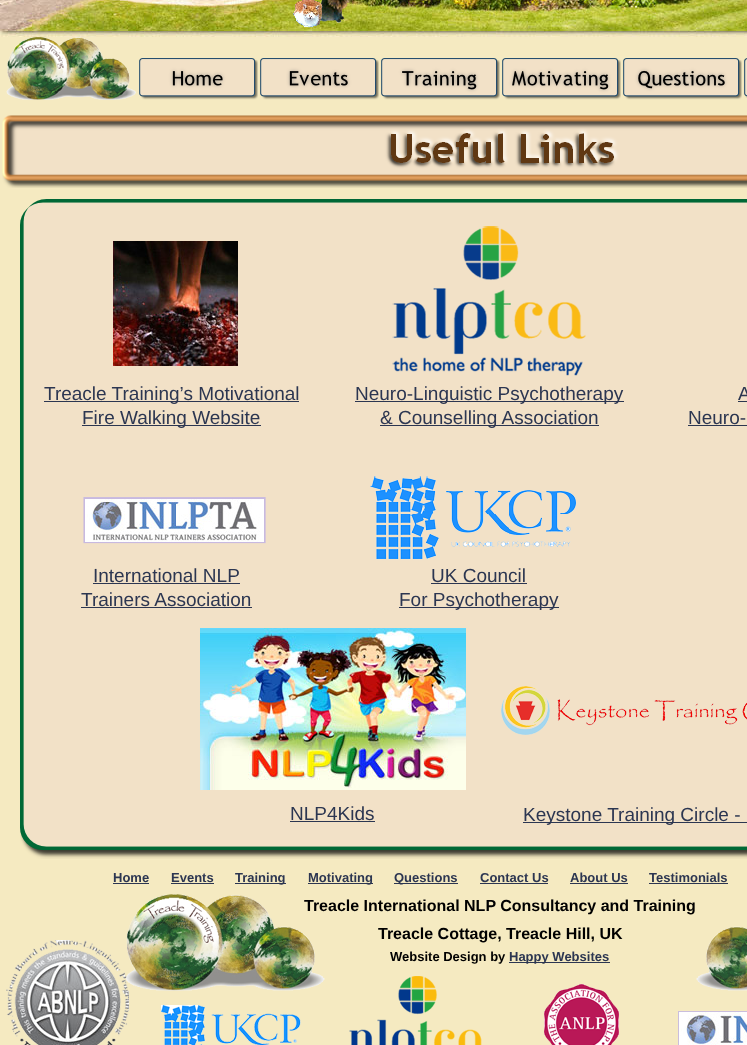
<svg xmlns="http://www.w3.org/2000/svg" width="747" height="1045">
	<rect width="100%" height="100%" fill="#F5EAC1" />
	<image x="0" y="0" width="747" height="37" href="assets/img1.png" />
	<image x="317" y="0" width="32" height="23" href="assets/img3.png" />
	<image x="293" y="0" width="30" height="28" href="assets/img2.png" />
	<image x="6" y="36" width="130" height="64" href="assets/img4.png" />
	<image x="139" y="58" width="119" height="42" href="assets/img5.png" />
	<image x="260" y="58" width="119" height="42" href="assets/img6.png" />
	<image x="381" y="58" width="119" height="42" href="assets/img7.png" />
	<image x="502" y="58" width="119" height="42" href="assets/img8.png" />
	<image x="623" y="58" width="119" height="42" href="assets/img9.png" />
	<image x="744" y="58" width="3" height="40" href="assets/img10.png" />
	<image x="2" y="115" width="745" height="73" href="assets/img11.png" />
	<image x="20" y="199" width="727" height="660" href="assets/img12.png" />
	<image x="113" y="241" width="125" height="125" href="assets/img13.png" />
	<rect x="44" y="401" width="255" height="1" fill="#2C3651" />
	<text x="44" y="400" font-family="Liberation Sans" font-size="19" fill="#2C3651">Treacle Training’s Motivational</text>
	<rect x="82" y="425" width="179" height="1" fill="#2C3651" />
	<text x="82" y="424" font-family="Liberation Sans" font-size="19" fill="#2C3651">Fire Walking Website</text>
	<rect x="355" y="401" width="269" height="1" fill="#2C3651" />
	<text x="355" y="400" font-family="Liberation Sans" font-size="19" fill="#2C3651">Neuro-Linguistic Psychotherapy</text>
	<rect x="380" y="425" width="219" height="1" fill="#2C3651" />
	<g font-family="Liberation Sans" font-size="19" fill="#2C3651">
		<text x="380" y="424">&amp; Counselling Association</text>
		<text x="738" y="400">A</text>
	</g>
	<rect x="738" y="401" width="9" height="1" fill="#2C3651" />
	<text x="688" y="424" font-family="Liberation Sans" font-size="19" fill="#2C3651">Neuro-</text>
	<rect x="688" y="425" width="59" height="1" fill="#2C3651" />
	<text x="93" y="582" font-family="Liberation Sans" font-size="19" fill="#2C3651">International NLP</text>
	<rect x="93" y="583" width="147" height="1" fill="#2C3651" />
	<text x="81" y="606" font-family="Liberation Sans" font-size="19" fill="#2C3651">Trainers Association</text>
	<rect x="81" y="607" width="171" height="1" fill="#2C3651" />
	<text x="431" y="582" font-family="Liberation Sans" font-size="19" fill="#2C3651">UK Council</text>
	<rect x="431" y="583" width="96" height="1" fill="#2C3651" />
	<rect x="399" y="607" width="160" height="1" fill="#2C3651" />
	<text x="399" y="606" font-family="Liberation Sans" font-size="19" fill="#2C3651">For Psychotherapy</text>
	<image x="200" y="628" width="266" height="162" href="assets/img14.png" />
	<image x="501" y="686" width="246" height="49" href="assets/img15.png" />
	<text x="290" y="820" font-family="Liberation Sans" font-size="19" fill="#2C3651">NLP4Kids</text>
	<rect x="290" y="821" width="85" height="1" fill="#2C3651" />
	<rect x="523" y="822" width="224" height="1" fill="#2C3651" />
	<text x="523" y="821" font-family="Liberation Sans" font-size="19" fill="#2C3651">Keystone Training Circle -</text>
	<text x="113" y="882" font-family="Liberation Sans" font-size="13" font-weight="700" fill="#2C3651">Home</text>
	<rect x="113" y="883" width="36" height="1" fill="#2C3651" />
	<text x="171" y="882" font-family="Liberation Sans" font-size="13" font-weight="700" fill="#2C3651">Events</text>
	<rect x="171" y="883" width="43" height="1" fill="#2C3651" />
	<rect x="235" y="883" width="51" height="1" fill="#2C3651" />
	<text x="235" y="882" font-family="Liberation Sans" font-size="13" font-weight="700" fill="#2C3651">Training</text>
	<rect x="308" y="883" width="65" height="1" fill="#2C3651" />
	<text x="308" y="882" font-family="Liberation Sans" font-size="13" font-weight="700" fill="#2C3651">Motivating</text>
	<rect x="394" y="883" width="64" height="1" fill="#2C3651" />
	<g font-family="Liberation Sans" font-size="13" font-weight="700" fill="#2C3651">
		<text x="394" y="882">Questions</text>
		<text x="480" y="882">Contact Us</text>
	</g>
	<rect x="480" y="883" width="68" height="1" fill="#2C3651" />
	<text x="570" y="882" font-family="Liberation Sans" font-size="13" font-weight="700" fill="#2C3651">About Us</text>
	<rect x="570" y="883" width="58" height="1" fill="#2C3651" />
	<text x="649" y="882" font-family="Liberation Sans" font-size="13" font-weight="700" fill="#2C3651">Testimonials</text>
	<rect x="649" y="883" width="79" height="1" fill="#2C3651" />
	<text x="304" y="911" font-family="Liberation Sans" font-size="16" font-weight="700" fill="#000000">Treacle International NLP Consultancy and Training</text>
	<image x="125" y="894" width="200" height="97" href="assets/img17.png" />
	<image x="6" y="940" width="123" height="105" href="assets/img16.png" />
	<text x="378" y="939" font-family="Liberation Sans" font-size="16" font-weight="700" fill="#000000">Treacle Cottage, Treacle Hill, UK</text>
	<text x="390" y="961" font-family="Liberation Sans" font-size="13" font-weight="700" fill="#000000">Website Design by</text>
	<rect x="509" y="962" width="101" height="1" fill="#2C3651" />
	<text x="509" y="961" font-family="Liberation Sans" font-size="13" font-weight="700" fill="#2C3651">Happy Websites</text>
	<image x="696" y="926" width="51" height="65" href="assets/img18.png" />
	<image x="161" y="1005" width="140" height="40" href="assets/img19.png" />
	<image x="349" y="976" width="133" height="69" href="assets/img20.png" />
	<image x="544" y="984" width="75" height="61" href="assets/img21.png" />
	<image x="678" y="1011" width="69" height="34" href="assets/img22.png" />
</svg>
